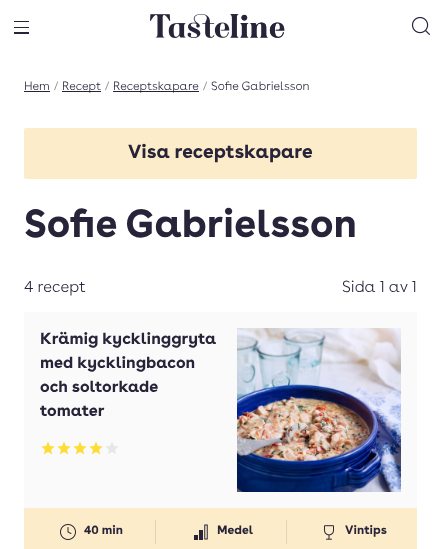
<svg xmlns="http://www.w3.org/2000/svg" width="441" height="549">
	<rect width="100%" height="100%" fill="#FFFFFF" />
	<rect x="14" y="21" width="15" height="1" fill="#272439" />
	<rect x="14" y="27" width="15" height="1" fill="#272439" />
	<rect x="14" y="32" width="15" height="2" fill="#272439" />
	<image x="150" y="14" width="135" height="24" href="assets/img1.png" />
	<image x="411" y="16" width="19" height="19" href="assets/img2.png" />
	<text x="24" y="90" font-family="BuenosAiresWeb" font-size="12" font-weight="300" fill="#272439">Hem</text>
	<rect x="24" y="91" width="26" height="1" fill="#272439" />
	<text x="54" y="90" font-family="BuenosAiresWeb" font-size="12" font-weight="300" fill="#848484">/</text>
	<rect x="62" y="91" width="39" height="1" fill="#272439" />
	<text x="62" y="90" font-family="BuenosAiresWeb" font-size="12" font-weight="300" fill="#272439">Recept</text>
	<text x="105" y="90" font-family="BuenosAiresWeb" font-size="12" font-weight="300" fill="#848484">/</text>
	<rect x="113" y="91" width="86" height="1" fill="#272439" />
	<text x="113" y="90" font-family="BuenosAiresWeb" font-size="12" font-weight="300" fill="#272439">Receptskapare</text>
	<text x="203" y="90" font-family="BuenosAiresWeb" font-size="12" font-weight="300" fill="#848484">/</text>
	<text x="211" y="90" font-family="BuenosAiresWeb" font-size="12" font-weight="300" fill="#272439">Sofie Gabrielsson</text>
	<rect x="24" y="128" width="393" height="51" rx="2" fill="#FDECC9" />
	<text x="128" y="158" font-family="BuenosAiresWeb" font-size="19" font-weight="700" fill="#272439">Visa receptskapare</text>
	<text x="24" y="237" font-family="BuenosAiresWeb" font-size="39" font-weight="700" fill="#272439">Sofie Gabrielsson</text>
	<g font-family="BuenosAiresWeb" font-size="16" font-weight="300" fill="#272439">
		<text x="24" y="292">4 recept</text>
		<text x="342" y="292">Sida 1 av 1</text>
	</g>
	<rect x="24" y="312" width="393" height="196" fill="#FAFAFA" />
	<g font-family="BuenosAiresWeb" font-size="16" font-weight="700" fill="#272439">
		<text x="40" y="344">Krämig kycklinggryta</text>
		<text x="40" y="368">med kycklingbacon</text>
		<text x="40" y="392">och soltorkade</text>
		<text x="40" y="416">tomater</text>
	</g>
	<image x="41" y="441" width="14" height="14" href="assets/img3.png" />
	<image x="57" y="441" width="14" height="14" href="assets/img3.png" />
	<image x="73" y="441" width="14" height="14" href="assets/img3.png" />
	<image x="89" y="441" width="14" height="14" href="assets/img3.png" />
	<image x="106" y="442" width="12" height="12" href="assets/img4.png" />
	<image x="237" y="328" width="164" height="164" href="assets/img5.png" />
	<rect x="24" y="508" width="393" height="41" fill="#FDECC9" />
	<image x="60" y="524" width="16" height="16" href="assets/img6.png" />
	<text x="84" y="534" font-family="BuenosAiresWeb" font-size="12" font-weight="700" fill="#272439">40 min</text>
	<rect x="155" y="520" width="1" height="24" fill="#E2D3B7" />
	<image x="194" y="524" width="14" height="16" href="assets/img7.png" />
	<text x="217" y="534" font-family="BuenosAiresWeb" font-size="12" font-weight="700" fill="#272439">Medel</text>
	<rect x="286" y="520" width="1" height="24" fill="#E2D3B7" />
	<image x="324" y="525" width="10" height="15" href="assets/img8.png" />
	<text x="345" y="534" font-family="BuenosAiresWeb" font-size="12" font-weight="700" fill="#272439">Vintips</text>
</svg>
